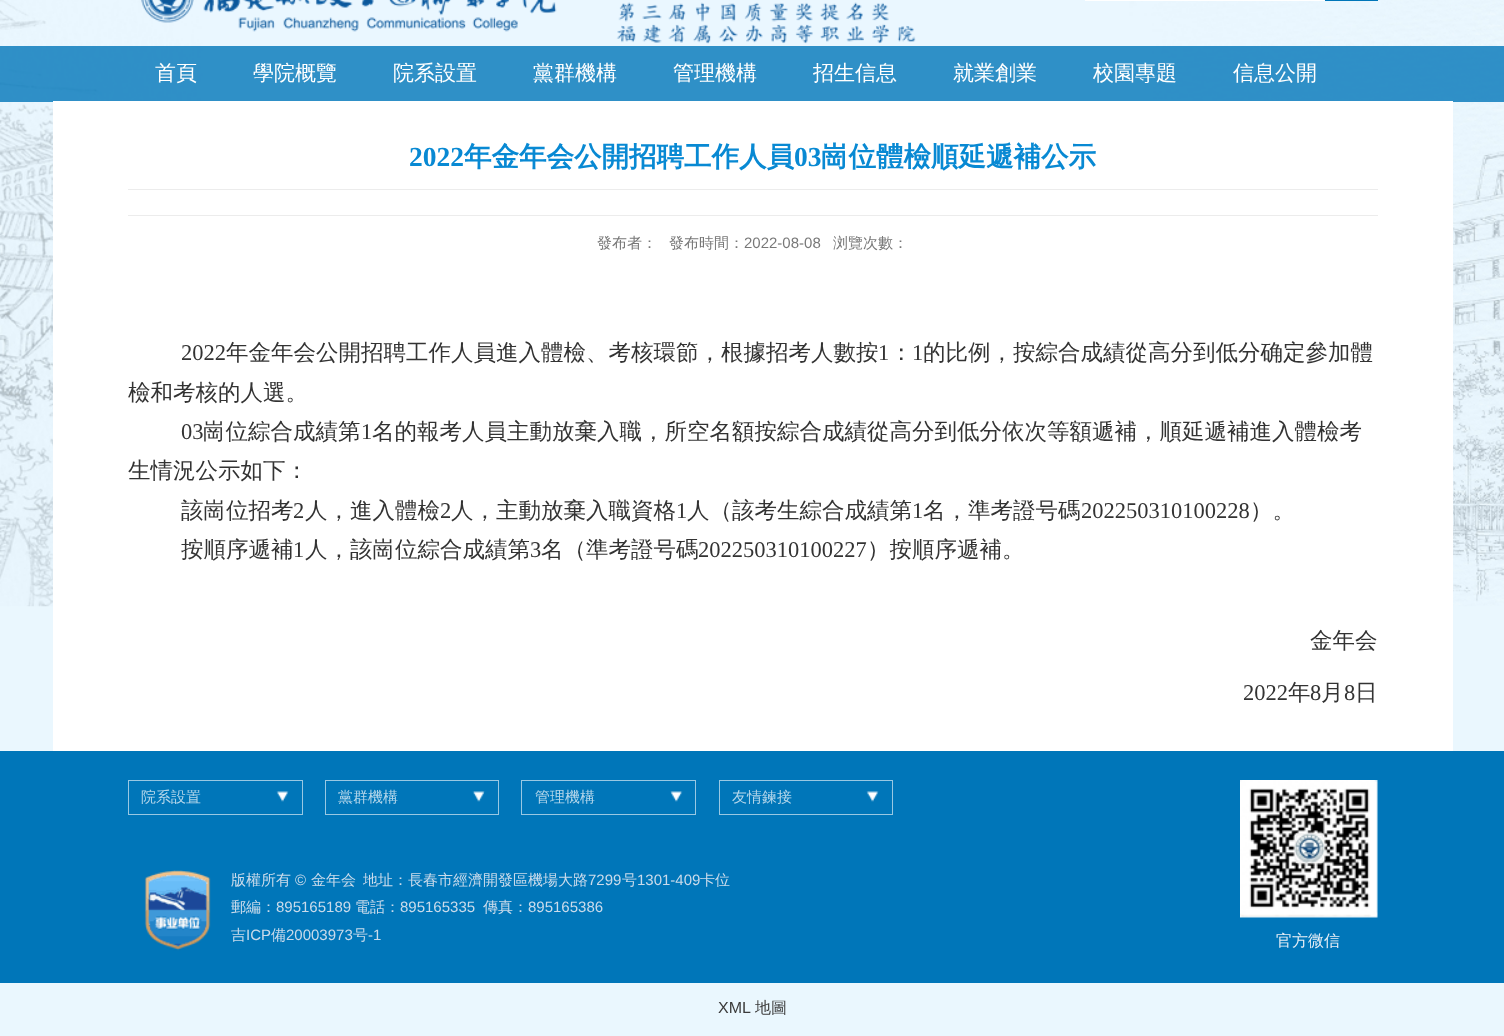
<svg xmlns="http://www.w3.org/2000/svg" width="1504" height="1036">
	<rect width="100%" height="100%" fill="#EAF7FE" />
	<image x="0" y="0" width="1504" height="607" href="assets/img1.png" />
	<image x="141" y="0" width="775" height="44" href="assets/img2.png" />
	<rect x="1085" y="0" width="240" height="1" fill="#FFFFFF" />
	<rect x="1325" y="0" width="53" height="1" fill="#0076B9" />
	<rect x="0" y="46" width="1504" height="56" fill="#0075B9" fill-opacity="0.8" />
	<g font-family="WenQuanYi Zen Hei" font-size="21" font-weight="500" fill="#FFFFFF">
		<text x="155" y="80">首頁</text>
		<text x="253" y="80">學院概覽</text>
		<text x="393" y="80">院系設置</text>
		<text x="533" y="80">黨群機構</text>
		<text x="673" y="80">管理機構</text>
		<text x="813" y="80">招生信息</text>
		<text x="953" y="80">就業創業</text>
		<text x="1093" y="80">校園專題</text>
		<text x="1233" y="80">信息公開</text>
	</g>
	<rect x="53" y="101" width="1400" height="650" fill="#FFFFFF" />
	<rect x="128" y="189" width="1250" height="1" fill="#ECECEC" />
	<text x="409" y="166" font-family="Liberation Serif" font-size="27.5" font-weight="700" fill="#0889D3">2022</text>
	<text x="464" y="166" font-family="WenQuanYi Zen Hei" font-size="27.5" font-weight="700" fill="#0889D3">年金年会公開招聘工作人員</text>
	<text x="794" y="166" font-family="Liberation Serif" font-size="27.5" font-weight="700" fill="#0889D3">03</text>
	<text x="821" y="166" font-family="WenQuanYi Zen Hei" font-size="27.5" font-weight="700" fill="#0889D3">崗位體檢順延遞補公示</text>
	<rect x="128" y="215" width="1250" height="1" fill="#ECECEC" />
	<g font-family="WenQuanYi Zen Hei" font-size="15" font-weight="500" fill="#787878">
		<text x="597" y="248">發布者：</text>
		<text x="669" y="248">發布時間：</text>
	</g>
	<text x="744" y="248" font-family="Liberation Sans" font-size="15" fill="#787878">2022-08-08</text>
	<text x="833" y="248" font-family="WenQuanYi Zen Hei" font-size="15" font-weight="500" fill="#787878">浏覽次數：</text>
	<text x="181" y="360" font-family="Liberation Serif" font-size="22.5" fill="#333333">2022</text>
	<text x="226" y="360" font-family="WenQuanYi Zen Hei" font-size="22.5" font-weight="500" fill="#333333">年金年会公開招聘工作人員進入體檢、考核環節，根據招考人數按</text>
	<text x="878" y="360" font-family="Liberation Serif" font-size="22.5" fill="#333333">1</text>
	<text x="890" y="360" font-family="WenQuanYi Zen Hei" font-size="22.5" font-weight="500" fill="#333333">：</text>
	<text x="912" y="360" font-family="Liberation Serif" font-size="22.5" fill="#333333">1</text>
	<g font-family="WenQuanYi Zen Hei" font-size="22.5" font-weight="500" fill="#333333">
		<text x="923" y="360">的比例，按綜合成績從高分到低分确定參加體</text>
		<text x="128" y="400">檢和考核的人選。</text>
	</g>
	<text x="181" y="439" font-family="Liberation Serif" font-size="22.5" fill="#333333">03</text>
	<text x="203" y="439" font-family="WenQuanYi Zen Hei" font-size="22.5" font-weight="500" fill="#333333">崗位綜合成績第</text>
	<text x="361" y="439" font-family="Liberation Serif" font-size="22.5" fill="#333333">1</text>
	<g font-family="WenQuanYi Zen Hei" font-size="22.5" font-weight="500" fill="#333333">
		<text x="372" y="439">名的報考人員主動放棄入職，所空名額按綜合成績從高分到低分依次等額遞補，順延遞補進入體檢考</text>
		<text x="128" y="478">生情況公示如下：</text>
		<text x="181" y="518">該崗位招考</text>
	</g>
	<text x="293" y="518" font-family="Liberation Serif" font-size="22.5" fill="#333333">2</text>
	<text x="305" y="518" font-family="WenQuanYi Zen Hei" font-size="22.5" font-weight="500" fill="#333333">人，進入體檢</text>
	<text x="440" y="518" font-family="Liberation Serif" font-size="22.5" fill="#333333">2</text>
	<text x="451" y="518" font-family="WenQuanYi Zen Hei" font-size="22.5" font-weight="500" fill="#333333">人，主動放棄入職資格</text>
	<text x="676" y="518" font-family="Liberation Serif" font-size="22.5" fill="#333333">1</text>
	<text x="687" y="518" font-family="WenQuanYi Zen Hei" font-size="22.5" font-weight="500" fill="#333333">人（該考生綜合成績第</text>
	<text x="912" y="518" font-family="Liberation Serif" font-size="22.5" fill="#333333">1</text>
	<text x="923" y="518" font-family="WenQuanYi Zen Hei" font-size="22.5" font-weight="500" fill="#333333">名，準考證号碼</text>
	<text x="1081" y="518" font-family="Liberation Serif" font-size="22.5" fill="#333333">202250310100228</text>
	<g font-family="WenQuanYi Zen Hei" font-size="22.5" font-weight="500" fill="#333333">
		<text x="1250" y="518">）。</text>
		<text x="181" y="557">按順序遞補</text>
	</g>
	<text x="293" y="557" font-family="Liberation Serif" font-size="22.5" fill="#333333">1</text>
	<text x="305" y="557" font-family="WenQuanYi Zen Hei" font-size="22.5" font-weight="500" fill="#333333">人，該崗位綜合成績第</text>
	<text x="530" y="557" font-family="Liberation Serif" font-size="22.5" fill="#333333">3</text>
	<text x="541" y="557" font-family="WenQuanYi Zen Hei" font-size="22.5" font-weight="500" fill="#333333">名（準考證号碼</text>
	<text x="698" y="557" font-family="Liberation Serif" font-size="22.5" fill="#333333">202250310100227</text>
	<g font-family="WenQuanYi Zen Hei" font-size="22.5" font-weight="500" fill="#333333">
		<text x="867" y="557">）按順序遞補。</text>
		<text x="1310" y="648">金年会</text>
	</g>
	<text x="1243" y="700" font-family="Liberation Serif" font-size="22.5" fill="#333333">2022</text>
	<text x="1288" y="700" font-family="WenQuanYi Zen Hei" font-size="22.5" font-weight="500" fill="#333333">年</text>
	<text x="1310" y="700" font-family="Liberation Serif" font-size="22.5" fill="#333333">8</text>
	<text x="1321" y="700" font-family="WenQuanYi Zen Hei" font-size="22.5" font-weight="500" fill="#333333">月</text>
	<text x="1344" y="700" font-family="Liberation Serif" font-size="22.5" fill="#333333">8</text>
	<text x="1355" y="700" font-family="WenQuanYi Zen Hei" font-size="22.5" font-weight="500" fill="#333333">日</text>
	<rect x="0" y="751" width="1504" height="232" fill="#0076B9" />
	<rect x="128.5" y="780.5" width="174" height="34" fill="none" stroke="#99C8E3" />
	<image x="276" y="791" width="13" height="11" href="assets/img3.png" />
	<text x="141" y="802" font-family="WenQuanYi Zen Hei" font-size="15" font-weight="500" fill="#B3D6EA">院系設置</text>
	<rect x="325.5" y="780.5" width="173" height="34" fill="none" stroke="#99C8E3" />
	<image x="472" y="791" width="13" height="11" href="assets/img4.png" />
	<text x="338" y="802" font-family="WenQuanYi Zen Hei" font-size="15" font-weight="500" fill="#B3D6EA">黨群機構</text>
	<rect x="521.5" y="780.5" width="174" height="34" fill="none" stroke="#99C8E3" />
	<image x="670" y="791" width="13" height="11" href="assets/img5.png" />
	<text x="535" y="802" font-family="WenQuanYi Zen Hei" font-size="15" font-weight="500" fill="#B3D6EA">管理機構</text>
	<rect x="719.5" y="780.5" width="173" height="34" fill="none" stroke="#99C8E3" />
	<image x="866" y="791" width="13" height="11" href="assets/img6.png" />
	<text x="732" y="802" font-family="WenQuanYi Zen Hei" font-size="15" font-weight="500" fill="#B3D6EA">友情鍊接</text>
	<image x="144" y="870" width="67" height="81" href="assets/img7.png" />
	<text x="231" y="885" font-family="WenQuanYi Zen Hei" font-size="15" font-weight="500" fill="#CADBEB">版權所有</text>
	<text x="295" y="885" font-family="Liberation Sans" font-size="15" fill="#CADBEB">©</text>
	<g font-family="WenQuanYi Zen Hei" font-size="15" font-weight="500" fill="#CADBEB">
		<text x="311" y="885">金年会</text>
		<text x="363" y="885">地址：長春市經濟開發區機場大路</text>
	</g>
	<text x="588" y="885" font-family="Liberation Sans" font-size="15" fill="#CADBEB">7299</text>
	<text x="622" y="885" font-family="WenQuanYi Zen Hei" font-size="15" font-weight="500" fill="#CADBEB">号</text>
	<text x="637" y="885" font-family="Liberation Sans" font-size="15" fill="#CADBEB">1301-409</text>
	<g font-family="WenQuanYi Zen Hei" font-size="15" font-weight="500" fill="#CADBEB">
		<text x="700" y="885">卡位</text>
		<text x="231" y="912">郵編：</text>
	</g>
	<text x="276" y="912" font-family="Liberation Sans" font-size="15" fill="#CADBEB">895165189</text>
	<text x="355" y="912" font-family="WenQuanYi Zen Hei" font-size="15" font-weight="500" fill="#CADBEB">電話：</text>
	<text x="400" y="912" font-family="Liberation Sans" font-size="15" fill="#CADBEB">895165335</text>
	<text x="483" y="912" font-family="WenQuanYi Zen Hei" font-size="15" font-weight="500" fill="#CADBEB">傳真：</text>
	<text x="528" y="912" font-family="Liberation Sans" font-size="15" fill="#CADBEB">895165386</text>
	<text x="231" y="940" font-family="WenQuanYi Zen Hei" font-size="15" font-weight="500" fill="#CADBEB">吉</text>
	<text x="246" y="940" font-family="Liberation Sans" font-size="15" fill="#CADBEB">ICP</text>
	<text x="271" y="940" font-family="WenQuanYi Zen Hei" font-size="15" font-weight="500" fill="#CADBEB">備</text>
	<text x="286" y="940" font-family="Liberation Sans" font-size="15" fill="#CADBEB">20003973</text>
	<text x="353" y="940" font-family="WenQuanYi Zen Hei" font-size="15" font-weight="500" fill="#CADBEB">号</text>
	<text x="368" y="940" font-family="Liberation Sans" font-size="15" fill="#CADBEB">-1</text>
	<image x="1240" y="780" width="138" height="138" href="assets/img8.png" />
	<text x="1276" y="946" font-family="WenQuanYi Zen Hei" font-size="16" font-weight="500" fill="#E8EFF6">官方微信</text>
	<text x="718" y="1013" font-family="Liberation Sans" font-size="16" fill="#3B3B3B">XML</text>
	<text x="755" y="1013" font-family="WenQuanYi Zen Hei" font-size="16" font-weight="500" fill="#3B3B3B">地圖</text>
</svg>
